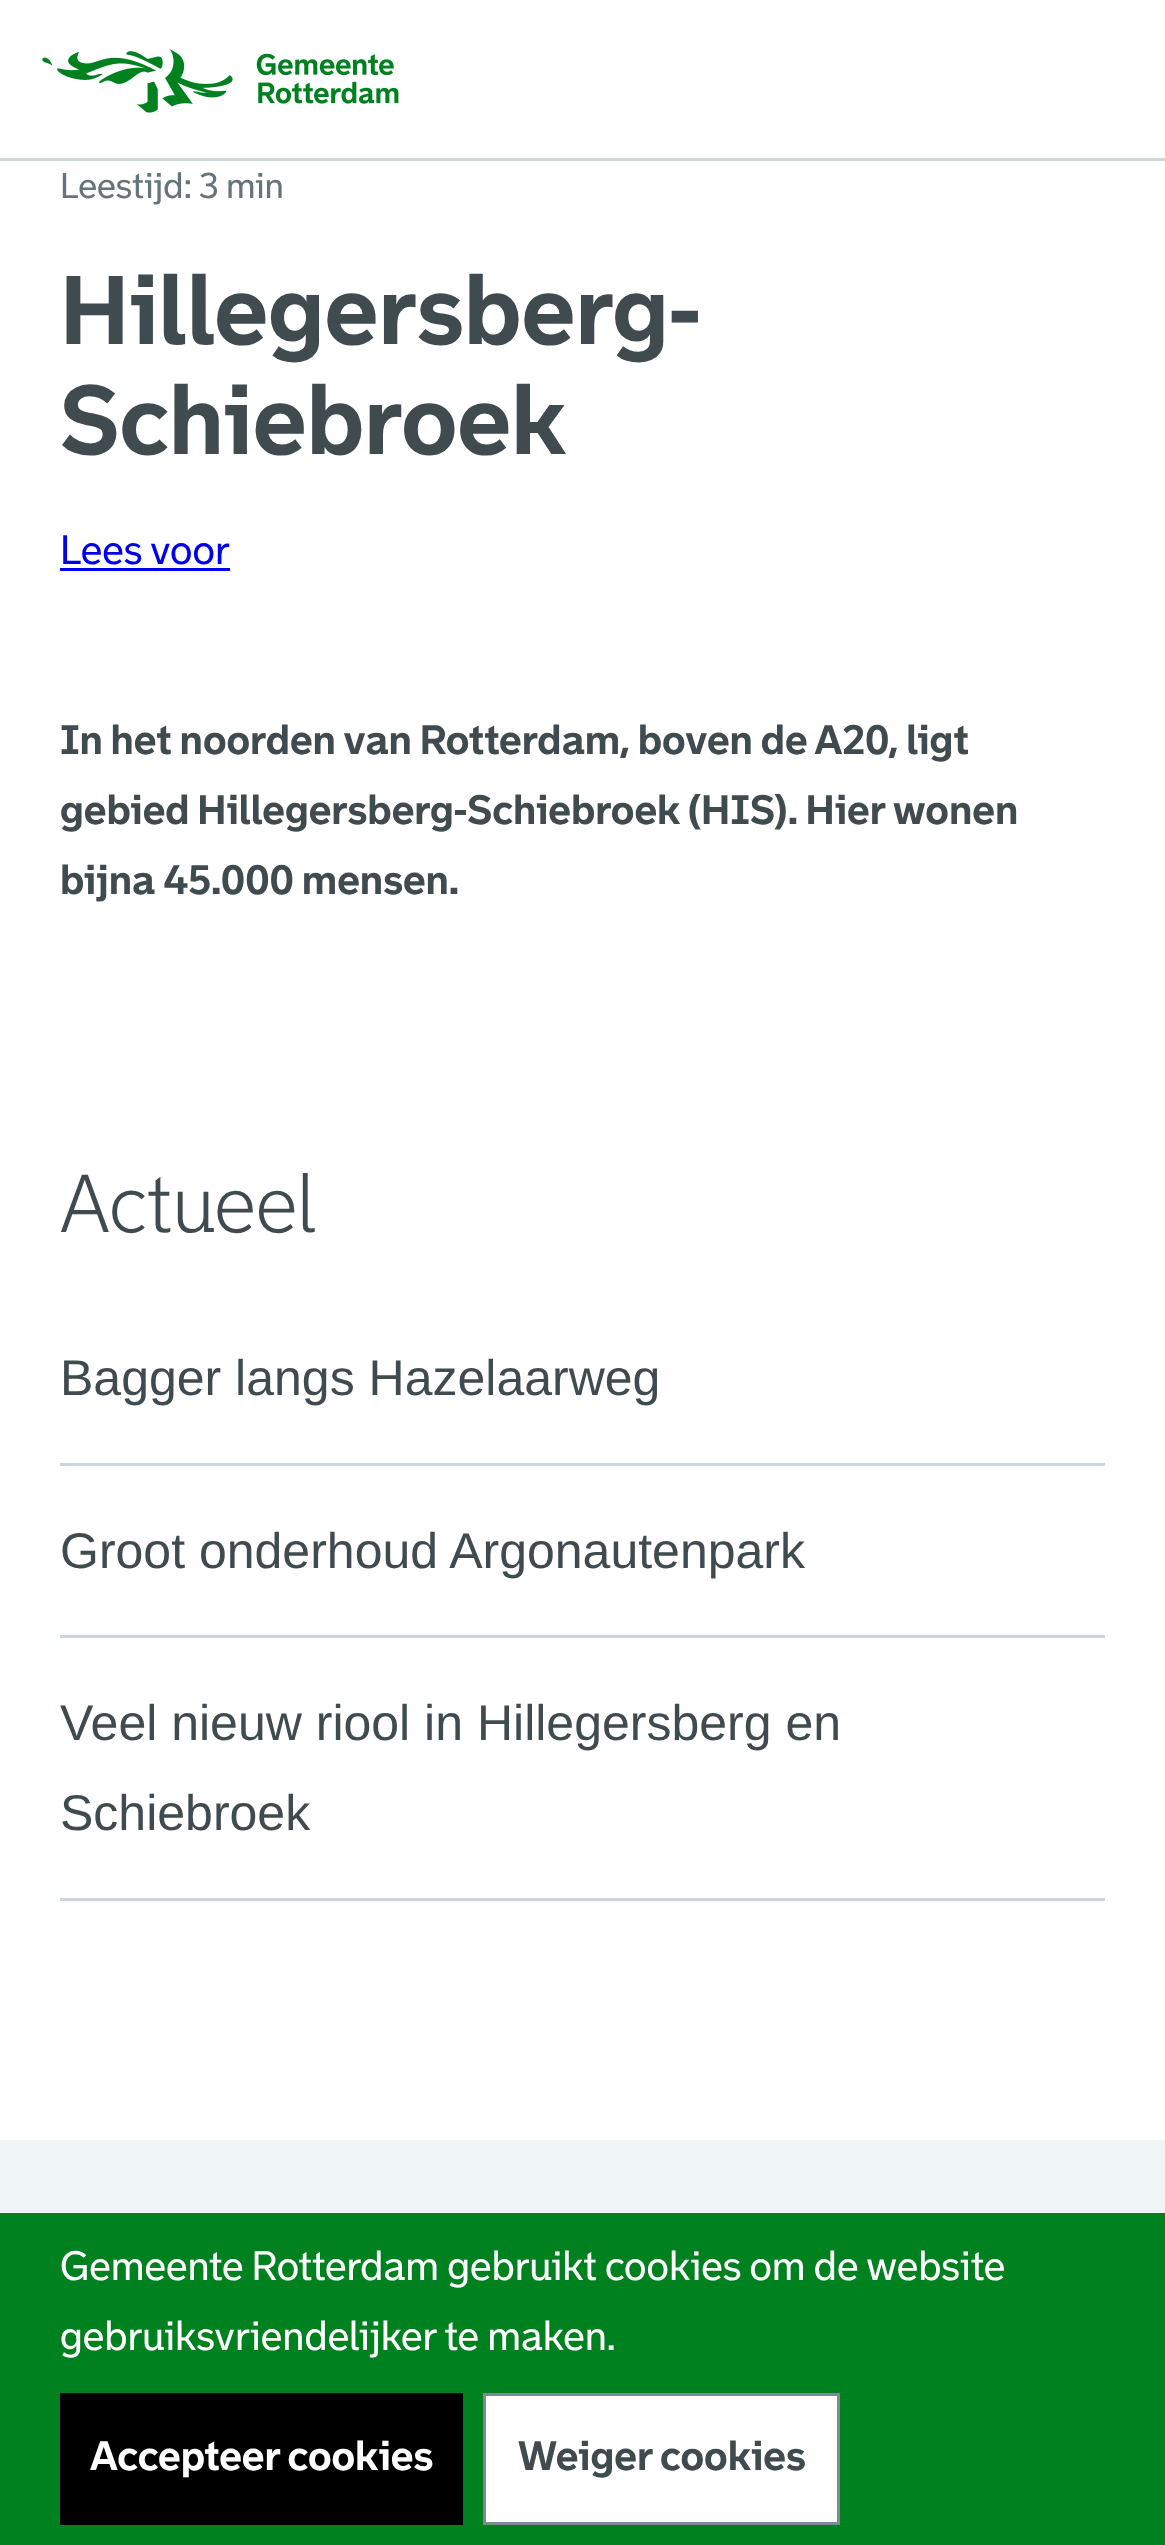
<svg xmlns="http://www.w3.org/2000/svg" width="1165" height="2545">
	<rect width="100%" height="100%" fill="#FFFFFF" />
	<rect x="0" y="158" width="1165" height="3" fill="#CAD6DA" />
	<image x="42" y="48" width="357" height="65" href="assets/img1.png" />
	<text x="60" y="198" font-family="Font" font-size="35" fill="#65757B">Leestijd: 3 min</text>
	<g font-family="Font" font-size="95" font-weight="700" fill="#404B4F">
		<text x="60" y="344">Hillegersberg-</text>
		<text x="60" y="454">Schiebroek</text>
	</g>
	<text x="60" y="564" font-family="Font" font-size="40" fill="#0000EE">Lees voor</text>
	<rect x="60" y="568" width="170" height="3" fill="#0000EE" />
	<g font-family="Font" font-size="40" font-weight="700" fill="#404B4F">
		<text x="60" y="754">In het noorden van Rotterdam, boven de A20, ligt</text>
		<text x="60" y="824">gebied Hillegersberg-Schiebroek (HIS). Hier wonen</text>
		<text x="60" y="894">bijna 45.000 mensen.</text>
	</g>
	<text x="60" y="1232" font-family="Font" font-size="80" font-weight="300" fill="#404B4F">Actueel</text>
	<rect x="60" y="1463" width="1045" height="3" fill="#CAD6DA" />
	<text x="60" y="1395" font-family="Liberation Sans" font-size="50" fill="#404B4F">Bagger langs Hazelaarweg</text>
	<rect x="60" y="1635" width="1045" height="3" fill="#CAD6DA" />
	<text x="60" y="1568" font-family="Liberation Sans" font-size="50" fill="#404B4F">Groot onderhoud Argonautenpark</text>
	<rect x="60" y="1898" width="1045" height="3" fill="#CAD6DA" />
	<g font-family="Liberation Sans" font-size="50" fill="#404B4F">
		<text x="60" y="1740">Veel nieuw riool in Hillegersberg en</text>
		<text x="60" y="1830">Schiebroek</text>
	</g>
	<rect x="0" y="2140" width="1165" height="73" fill="#EFF4F6" />
	<rect x="0" y="2213" width="1165" height="332" fill="#00811F" />
	<g font-family="Font" font-size="40" fill="#FFFFFF">
		<text x="60" y="2280">Gemeente Rotterdam gebruikt cookies om de website</text>
		<text x="60" y="2350">gebruiksvriendelijker te maken.</text>
	</g>
	<rect x="60" y="2393" width="403" height="132" fill="#000000" />
	<text x="90" y="2470" font-family="Font" font-size="40" font-weight="700" fill="#FFFFFF">Accepteer cookies</text>
	<rect x="484.5" y="2394.5" width="354" height="129" fill="#FFFFFF" stroke="#7C8B90" stroke-width="3" />
	<text x="518" y="2470" font-family="Font" font-size="40" font-weight="700" fill="#404B4F">Weiger cookies</text>
</svg>
